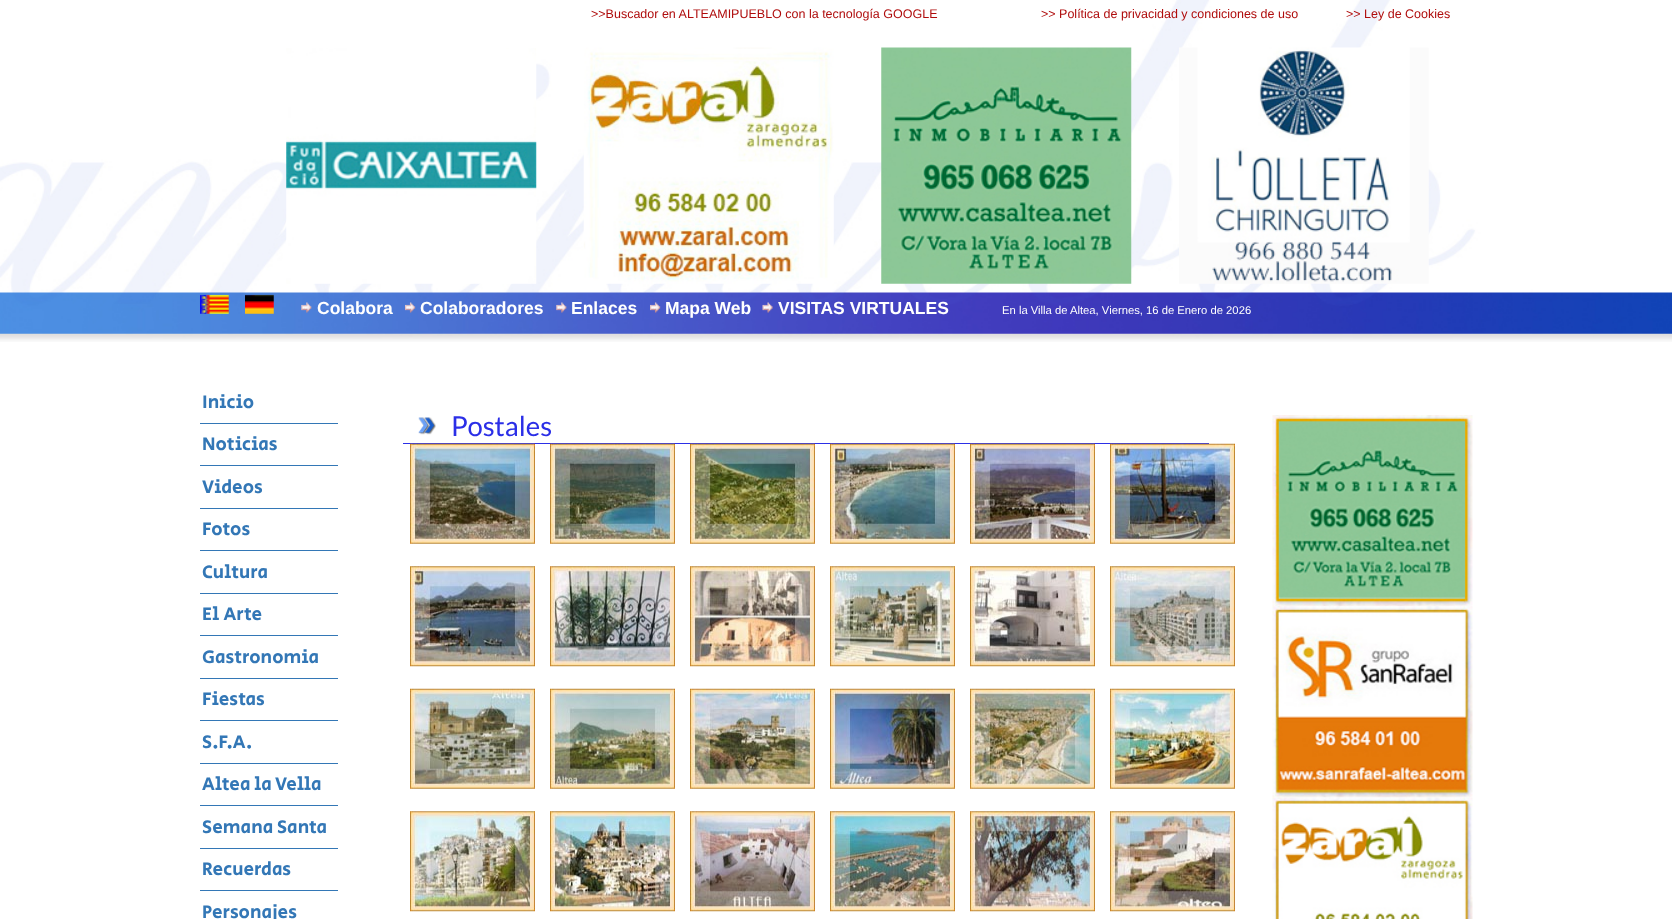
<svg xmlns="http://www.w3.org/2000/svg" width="1672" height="919">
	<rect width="100%" height="100%" fill="#FFFFFF" />
	<image x="0" y="0" width="1672" height="342" href="assets/img1.png" />
	<g font-family="Liberation Sans" font-size="12.5" fill="#AF0C0C">
		<text x="591" y="18">&gt;&gt;Buscador en ALTEAMIPUEBLO con la tecnología GOOGLE</text>
		<text x="1041" y="18">&gt;&gt; Política de privacidad y condiciones de uso</text>
		<text x="1346" y="18">&gt;&gt; Ley de Cookies</text>
	</g>
	<image x="286" y="48" width="251" height="236" href="assets/img2.png" />
	<image x="583" y="47" width="251" height="237" href="assets/img3.png" />
	<image x="881" y="47" width="251" height="237" href="assets/img4.png" />
	<image x="1179" y="47" width="250" height="237" href="assets/img5.png" />
	<image x="200" y="294" width="29" height="20" href="assets/img6.png" />
	<image x="245" y="294" width="29" height="20" href="assets/img7.png" />
	<image x="301" y="302" width="11" height="11" href="assets/img8.png" />
	<text x="317" y="314" font-family="Liberation Sans" font-size="17.5" font-weight="700" fill="#FFFFFF">Colabora</text>
	<image x="405" y="302" width="11" height="11" href="assets/img9.png" />
	<text x="420" y="314" font-family="Liberation Sans" font-size="17.5" font-weight="700" fill="#FFFFFF">Colaboradores</text>
	<image x="556" y="302" width="11" height="11" href="assets/img10.png" />
	<text x="571" y="314" font-family="Liberation Sans" font-size="17.5" font-weight="700" fill="#FFFFFF">Enlaces</text>
	<image x="650" y="302" width="11" height="11" href="assets/img11.png" />
	<text x="665" y="314" font-family="Liberation Sans" font-size="17.5" font-weight="700" fill="#FFFFFF">Mapa Web</text>
	<image x="762" y="302" width="11" height="11" href="assets/img12.png" />
	<text x="778" y="314" font-family="Liberation Sans" font-size="17.5" font-weight="700" fill="#FFFFFF">VISITAS VIRTUALES</text>
	<text x="1002" y="314" font-family="Liberation Sans" font-size="11.25" fill="#FFFFFF">En la Villa de Altea, Viernes, 16 de Enero de 2026</text>
	<rect x="200" y="423" width="138" height="1" fill="#3377B6" />
	<text x="202" y="408" font-family="Secular One" font-size="18.75" fill="#3377B6">Inicio</text>
	<rect x="200" y="465" width="138" height="1" fill="#3377B6" />
	<text x="202" y="450" font-family="Secular One" font-size="18.75" fill="#3377B6">Noticias</text>
	<rect x="200" y="508" width="138" height="1" fill="#3377B6" />
	<text x="202" y="493" font-family="Secular One" font-size="18.75" fill="#3377B6">Videos</text>
	<rect x="200" y="550" width="138" height="1" fill="#3377B6" />
	<text x="202" y="535" font-family="Secular One" font-size="18.75" fill="#3377B6">Fotos</text>
	<rect x="200" y="593" width="138" height="1" fill="#3377B6" />
	<text x="202" y="578" font-family="Secular One" font-size="18.75" fill="#3377B6">Cultura</text>
	<rect x="200" y="635" width="138" height="1" fill="#3377B6" />
	<text x="202" y="620" font-family="Secular One" font-size="18.75" fill="#3377B6">El Arte</text>
	<rect x="200" y="678" width="138" height="1" fill="#3377B6" />
	<text x="202" y="663" font-family="Secular One" font-size="18.75" fill="#3377B6">Gastronomia</text>
	<rect x="200" y="720" width="138" height="1" fill="#3377B6" />
	<text x="202" y="705" font-family="Secular One" font-size="18.75" fill="#3377B6">Fiestas</text>
	<rect x="200" y="763" width="138" height="1" fill="#3377B6" />
	<text x="202" y="748" font-family="Secular One" font-size="18.75" fill="#3377B6">S.F.A.</text>
	<rect x="200" y="805" width="138" height="1" fill="#3377B6" />
	<text x="202" y="790" font-family="Secular One" font-size="18.75" fill="#3377B6">Altea la Vella</text>
	<rect x="200" y="848" width="138" height="1" fill="#3377B6" />
	<text x="202" y="833" font-family="Secular One" font-size="18.75" fill="#3377B6">Semana Santa</text>
	<rect x="200" y="890" width="138" height="1" fill="#3377B6" />
	<g font-family="Secular One" font-size="18.75" fill="#3377B6">
		<text x="202" y="875">Recuerdas</text>
		<text x="202" y="918">Personajes</text>
	</g>
	<rect x="403" y="443" width="806" height="1" fill="#2B2FE7" />
	<image x="418" y="417" width="18" height="18" href="assets/img13.png" />
	<text x="451" y="436" font-family="Lato" font-size="27.5" fill="#2B2FE7">Postales</text>
	<image x="410" y="443" width="125" height="101" href="assets/img14.png" />
	<image x="550" y="443" width="125" height="101" href="assets/img15.png" />
	<image x="690" y="443" width="125" height="101" href="assets/img16.png" />
	<image x="830" y="443" width="125" height="101" href="assets/img17.png" />
	<image x="970" y="443" width="125" height="101" href="assets/img18.png" />
	<image x="1110" y="443" width="125" height="101" href="assets/img19.png" />
	<image x="410" y="566" width="125" height="101" href="assets/img20.png" />
	<image x="550" y="566" width="125" height="101" href="assets/img21.png" />
	<image x="690" y="566" width="125" height="101" href="assets/img22.png" />
	<image x="830" y="566" width="125" height="101" href="assets/img23.png" />
	<image x="970" y="566" width="125" height="101" href="assets/img24.png" />
	<image x="1110" y="566" width="125" height="101" href="assets/img25.png" />
	<image x="410" y="688" width="125" height="101" href="assets/img26.png" />
	<image x="550" y="688" width="125" height="101" href="assets/img27.png" />
	<image x="690" y="688" width="125" height="101" href="assets/img28.png" />
	<image x="830" y="688" width="125" height="101" href="assets/img29.png" />
	<image x="970" y="688" width="125" height="101" href="assets/img30.png" />
	<image x="1110" y="688" width="125" height="101" href="assets/img31.png" />
	<image x="410" y="811" width="125" height="101" href="assets/img32.png" />
	<image x="550" y="811" width="125" height="101" href="assets/img33.png" />
	<image x="690" y="811" width="125" height="101" href="assets/img34.png" />
	<image x="830" y="811" width="125" height="101" href="assets/img35.png" />
	<image x="970" y="811" width="125" height="101" href="assets/img36.png" />
	<image x="1110" y="811" width="125" height="101" href="assets/img37.png" />
	<image x="1272" y="415" width="201" height="192" href="assets/img38.png" />
	<image x="1272" y="606" width="201" height="192" href="assets/img39.png" />
	<image x="1272" y="797" width="201" height="122" href="assets/img40.png" />
</svg>
